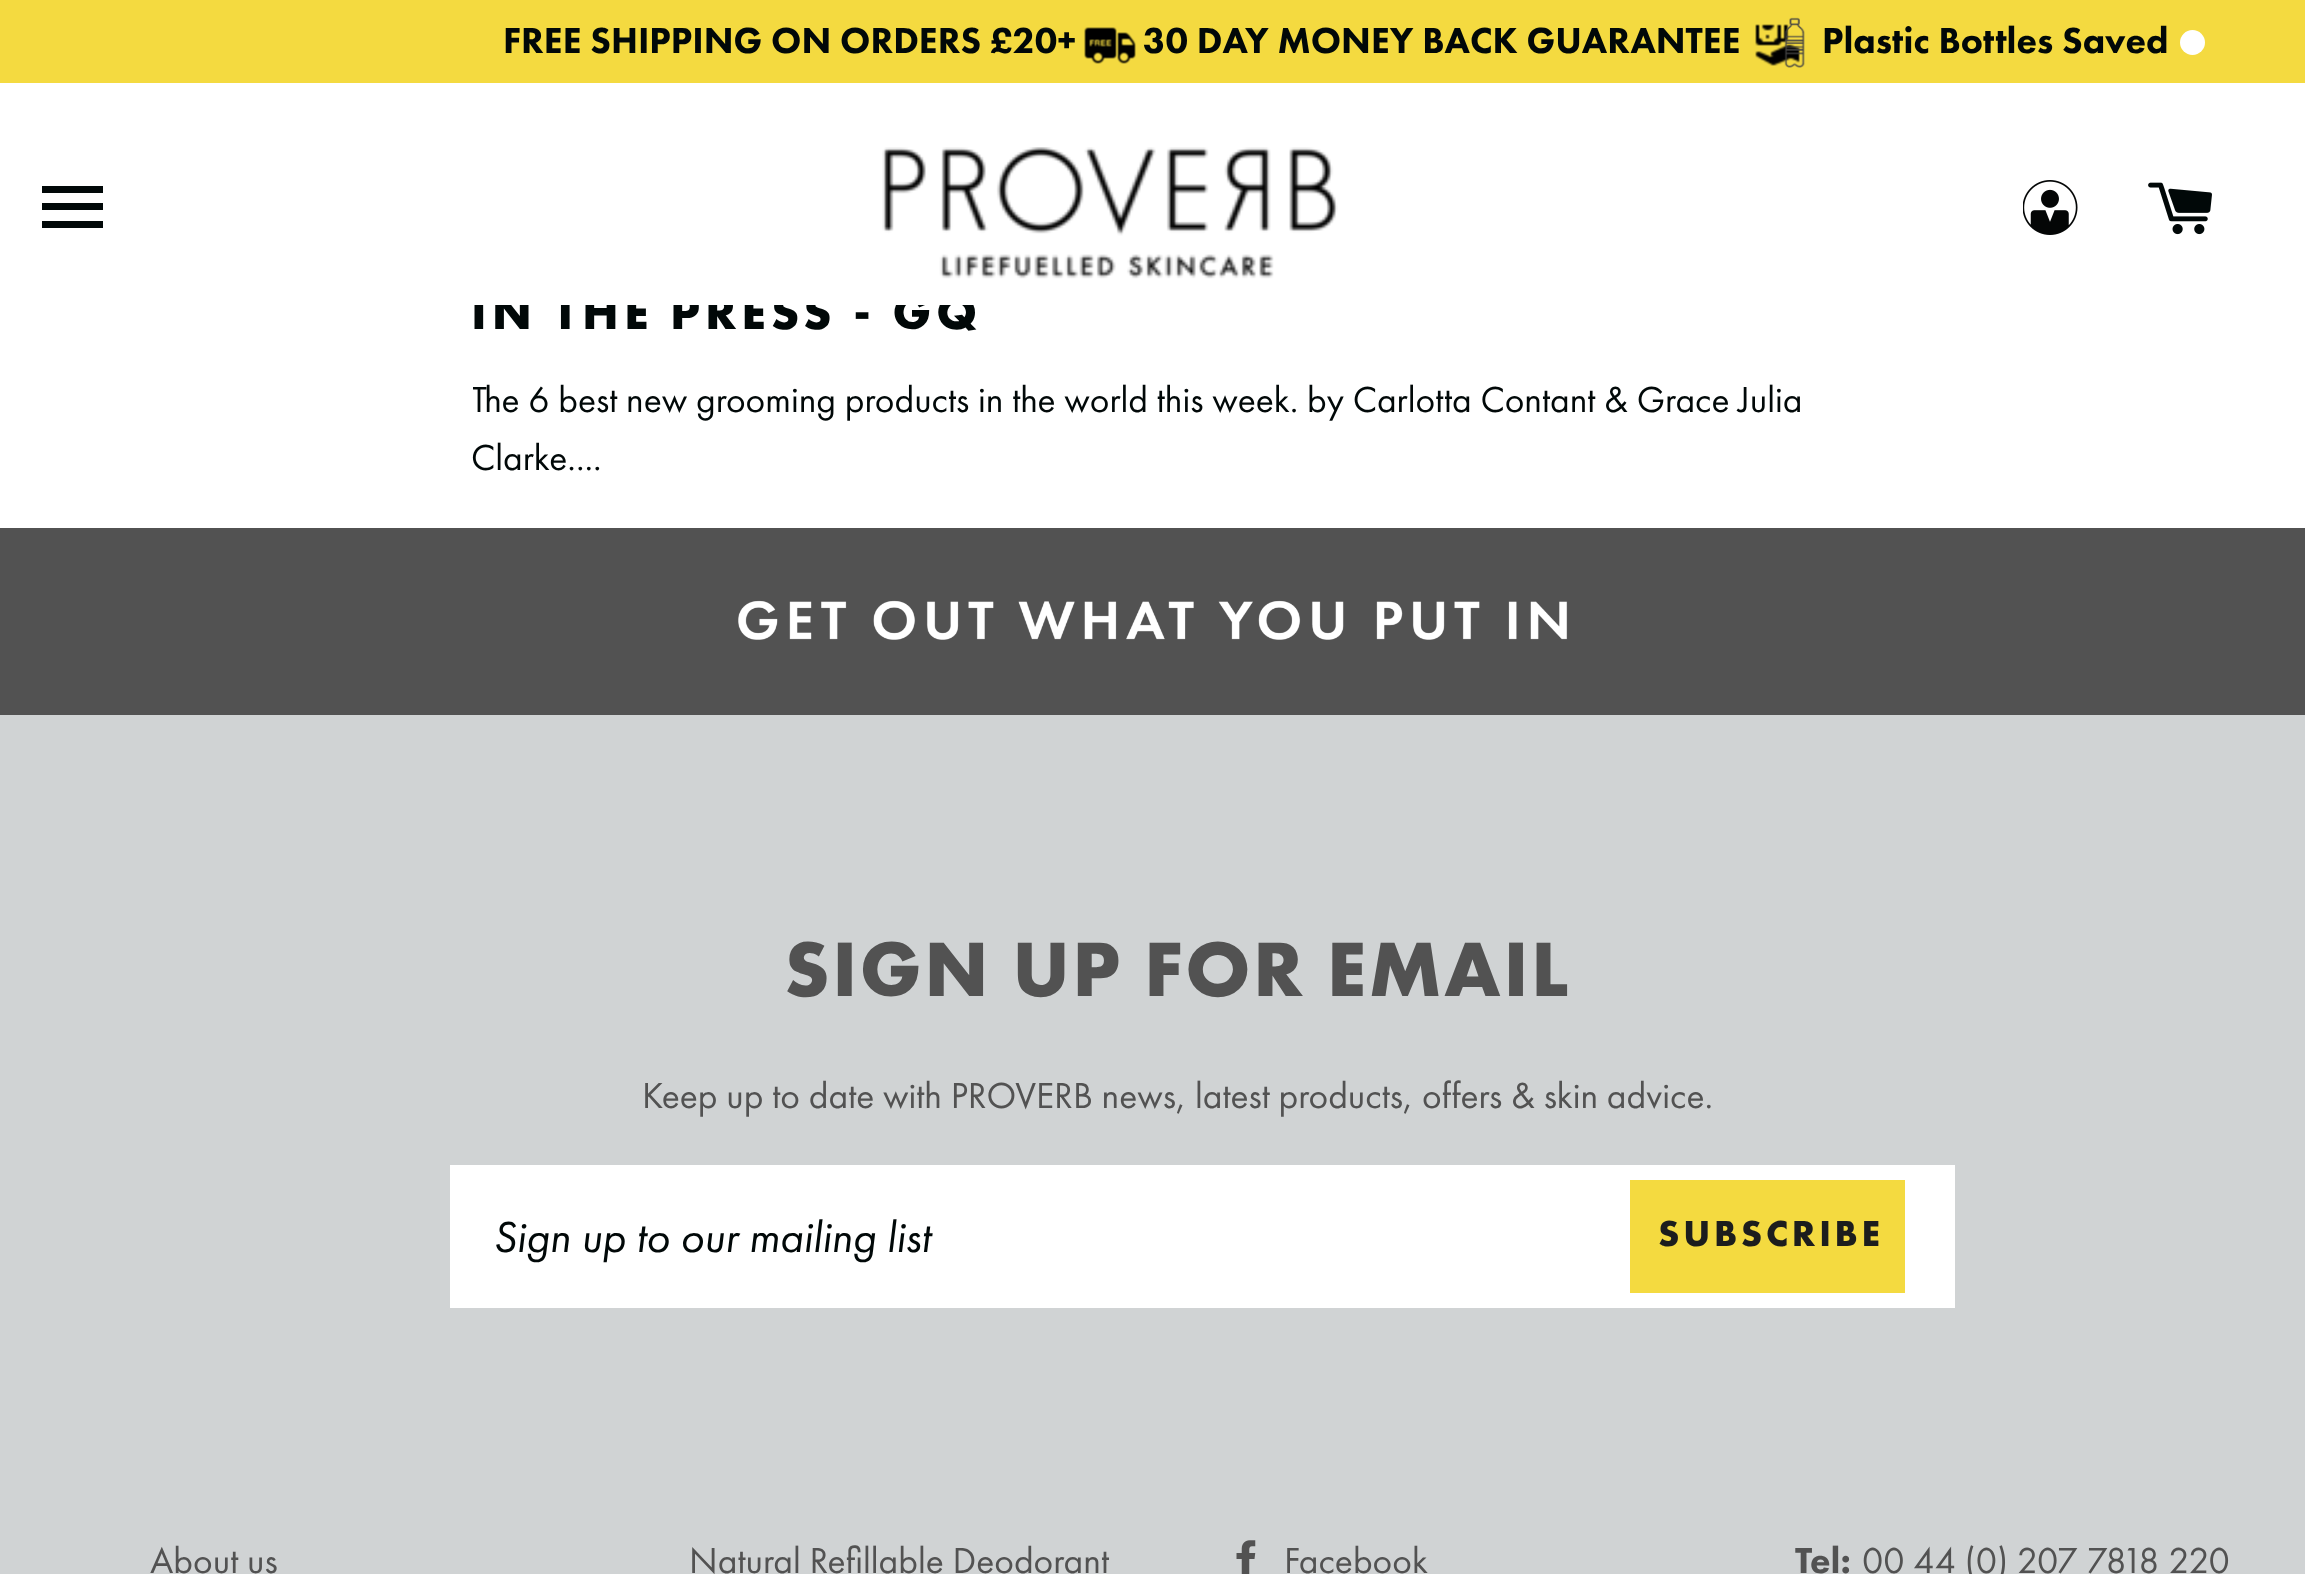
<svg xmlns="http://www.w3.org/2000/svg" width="2305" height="1574">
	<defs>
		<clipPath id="clip1"><rect x="473" y="0" width="1350" height="528" /></clipPath>
	</defs>
	<rect width="100%" height="100%" fill="#FFFFFF" />
	<text x="471" y="329" font-family="Futura PT" font-size="50" font-weight="700" letter-spacing="5" fill="#010808">IN THE PRESS - GQ</text>
	<rect x="474" y="294" width="500" height="11" fill="#FFFFFF" />
	<rect x="0" y="0" width="2305" height="83" fill="#F4DA40" />
	<text x="503" y="53" font-family="Futura PT" font-size="37.5" font-weight="900" fill="#010808">FREE SHIPPING ON ORDERS £20+</text>
	<image x="1084" y="27" width="52" height="37" href="assets/img1.png" />
	<text x="1143" y="53" font-family="Futura PT" font-size="37.5" font-weight="900" fill="#010808">30 DAY MONEY BACK GUARANTEE</text>
	<image x="1755" y="24" width="45" height="42" href="assets/img2.png" />
	<image x="1784" y="17" width="21" height="51" href="assets/img3.png" />
	<text x="1822" y="53" font-family="Futura PT" font-size="37.5" font-weight="900" fill="#010808">Plastic Bottles Saved</text>
	<circle cx="2192.5" cy="42.5" r="12.5" fill="#FFFFFF" />
	<path d="M42 186H103V193H42ZM42 203H103V210H42ZM42 221H103V228H42Z" fill="#010808" />
	<image x="882" y="147" width="456" height="132" href="assets/img4.png" />
	<image x="2023" y="180" width="55" height="55" href="assets/img5.png" />
	<image x="2148" y="182" width="64" height="53" href="assets/img6.png" />
	<g clip-path="url(#clip1)">
		<text x="471" y="412" font-family="Futura PT" font-size="37.5" fill="#010808">The 6 best new grooming products in the world this week. by Carlotta Contant &amp; Grace Julia</text>
	</g>
	<text x="471" y="470" font-family="Futura PT" font-size="37.5" fill="#010808">Clarke....</text>
	<rect x="0" y="528" width="2305" height="187" fill="#525252" />
	<image x="738" y="600" width="830" height="40" href="assets/img7.png" />
	<rect x="0" y="715" width="2305" height="859" fill="#D0D3D4" />
	<text x="784" y="996" font-family="Futura PT" font-size="80" font-weight="700" letter-spacing="2.5" fill="#525252">SIGN UP FOR EMAIL</text>
	<text x="642" y="1108" font-family="Futura PT" font-size="37.5" fill="#525252">Keep up to date with PROVERB news, latest products, offers &amp; skin advice.</text>
	<rect x="450" y="1165" width="1505" height="143" fill="#FFFFFF" />
	<text x="493" y="1252" font-family="Futura PT" font-size="45" font-style="italic" fill="#010808">Sign up to our mailing list</text>
	<rect x="1630" y="1180" width="275" height="113" fill="#F4DA40" />
	<text x="1658" y="1246" font-family="Futura PT" font-size="37.5" font-weight="700" letter-spacing="3.75" fill="#1C1D1D">SUBSCRIBE</text>
	<g font-family="Futura PT" font-size="37.5" fill="#525252">
		<text x="150" y="1573">About us</text>
		<text x="689" y="1573">Natural Refillable Deodorant</text>
	</g>
	<image x="1236" y="1540" width="20" height="34" href="assets/img8.png" />
	<text x="1284" y="1573" font-family="Futura PT" font-size="37.5" fill="#525252">Facebook</text>
	<text x="1795" y="1573" font-family="Futura PT" font-size="37.5" font-weight="900" fill="#525252">Tel:</text>
	<text x="1862" y="1573" font-family="Futura PT" font-size="37.5" fill="#525252">00 44 (0) 207 7818 220</text>
</svg>
